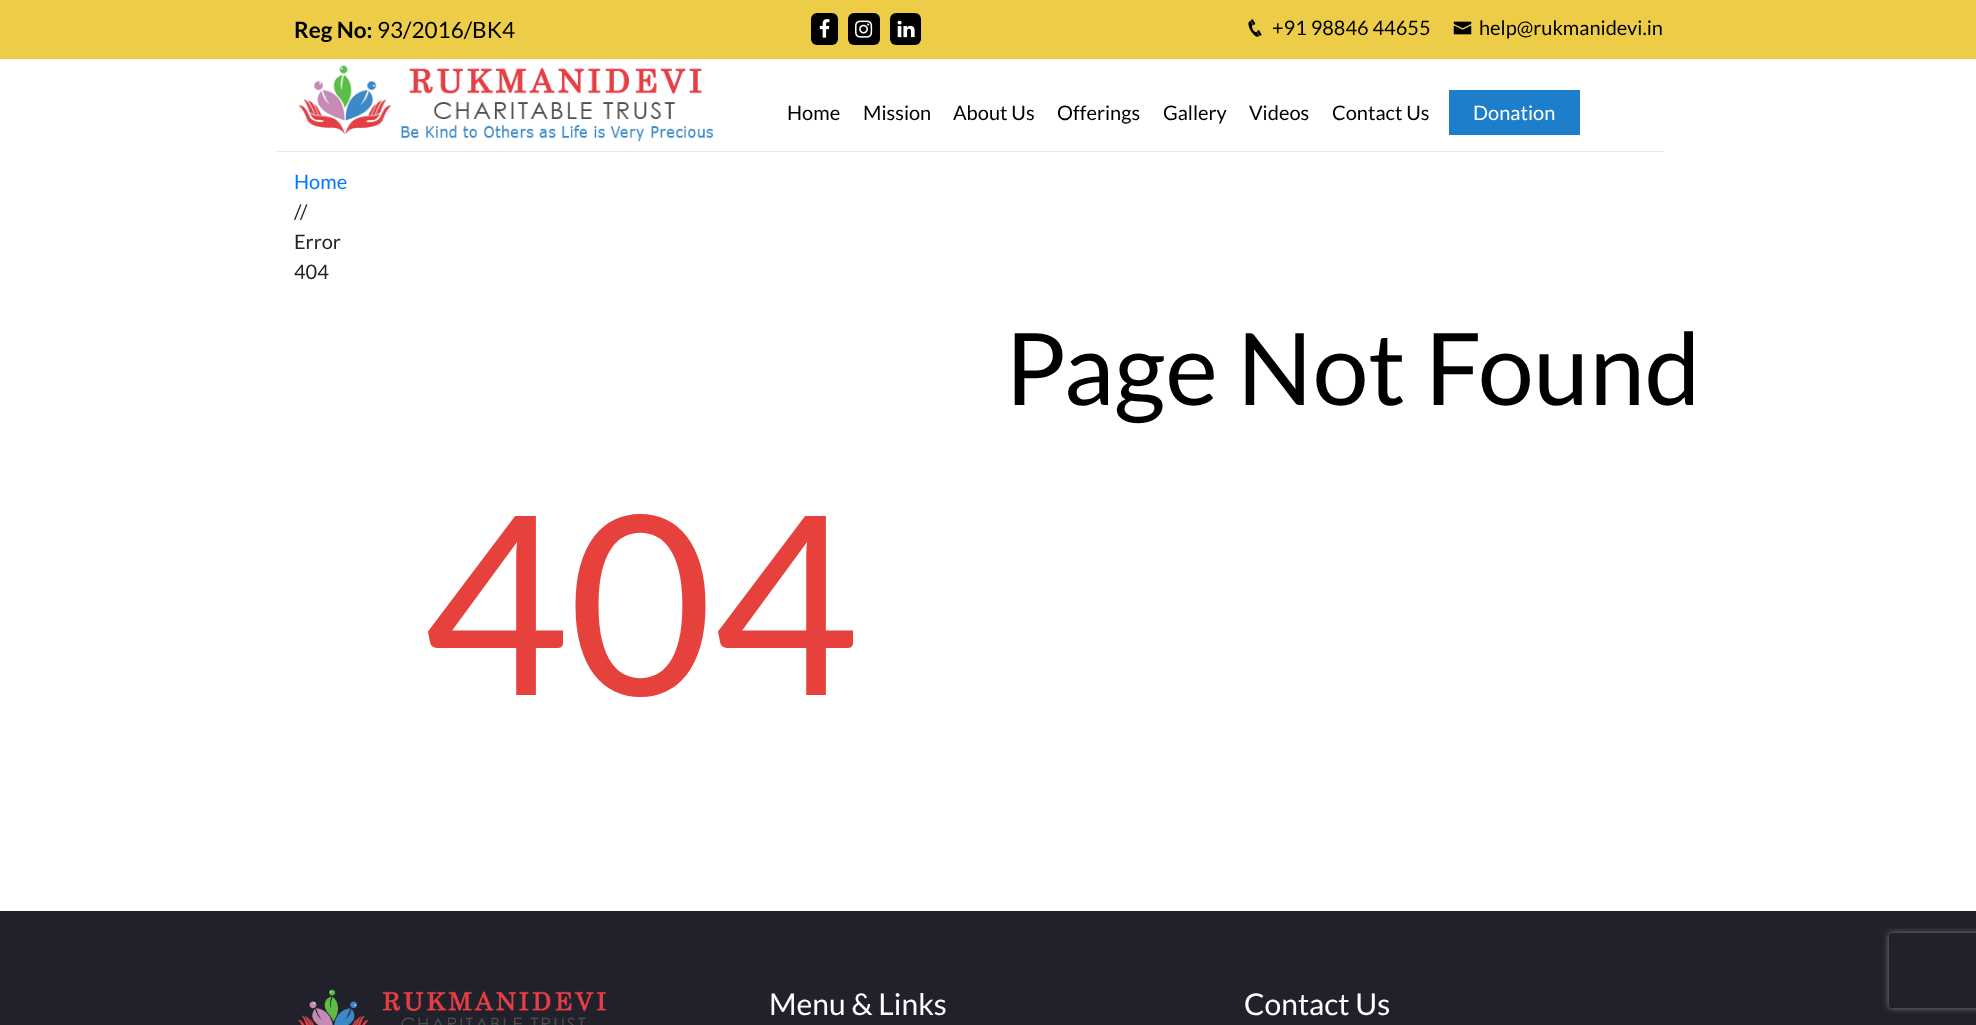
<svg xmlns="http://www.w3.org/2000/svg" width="1976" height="1025">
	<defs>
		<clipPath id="clip1"><path d="M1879 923H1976V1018H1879ZM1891.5 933H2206.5C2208 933 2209 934 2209 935.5V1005.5C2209 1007 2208 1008 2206.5 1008H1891.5C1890 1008 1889 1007 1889 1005.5V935.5C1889 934 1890 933 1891.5 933Z" clip-rule="evenodd" /></clipPath>
	</defs>
	<rect width="100%" height="100%" fill="#FFFFFF" />
	<rect x="0" y="0" width="1976" height="59" fill="#EDCD48" />
	<text x="294" y="38" font-family="Lato" font-size="22.5" font-weight="700" fill="#000000">Reg No:</text>
	<text x="377" y="38" font-family="Lato" font-size="22.5" fill="#000000">93/2016/BK4</text>
	<rect x="811" y="13" width="27" height="32" rx="6" fill="#000000" />
	<image x="819" y="19" width="11" height="19" href="assets/img1.png" />
	<rect x="848" y="13" width="32" height="32" rx="6" fill="#000000" />
	<image x="855" y="20" width="18" height="18" href="assets/img2.png" />
	<rect x="890" y="13" width="31" height="32" rx="6" fill="#000000" />
	<image x="897" y="20" width="18" height="18" href="assets/img3.png" />
	<image x="1248" y="19" width="14" height="18" href="assets/img4.png" />
	<text x="1272" y="35" font-family="Lato" font-size="20" fill="#000000">+91 98846 44655</text>
	<image x="1453" y="21" width="19" height="14" href="assets/img5.png" />
	<text x="1479" y="35" font-family="Lato" font-size="20" fill="#000000">help@rukmanidevi.in</text>
	<rect x="276" y="151" width="1388" height="1" fill="#DDECF7" />
	<image x="298" y="65" width="415" height="77" href="assets/img6.png" />
	<g font-family="Lato" font-size="20" fill="#000000">
		<text x="787" y="120">Home</text>
		<text x="863" y="120">Mission</text>
		<text x="953" y="120">About Us</text>
		<text x="1057" y="120">Offerings</text>
		<text x="1163" y="120">Gallery</text>
		<text x="1249" y="120">Videos</text>
		<text x="1332" y="120">Contact Us</text>
	</g>
	<rect x="1449" y="90" width="131" height="45" fill="#1D7FCC" />
	<text x="1473" y="120" font-family="Lato" font-size="20" fill="#FFFFFF">Donation</text>
	<text x="294" y="189" font-family="Lato" font-size="20" fill="#007BFF">Home</text>
	<g font-family="Lato" font-size="20" fill="#212529">
		<text x="294" y="219">//</text>
		<text x="294" y="249">Error</text>
		<text x="294" y="279">404</text>
	</g>
	<text x="1005" y="405" font-family="Lato" font-size="100" fill="#000000">Page Not Found</text>
	<text x="423" y="695" font-family="Lato" font-size="250" fill="#E7413D">404</text>
	<rect x="0" y="911" width="1976" height="114" fill="#20212B" />
	<image x="298" y="989" width="309" height="36" href="assets/img7.png" />
	<g font-family="Lato" font-size="30" fill="#FFFFFF">
		<text x="769" y="1015">Menu &amp; Links</text>
		<text x="1244" y="1015">Contact Us</text>
	</g>
	<g clip-path="url(#clip1)">
		<rect x="1889" y="933" width="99" height="75" rx="2.5" fill="#808080" filter="blur(3px)" />
	</g>
</svg>
